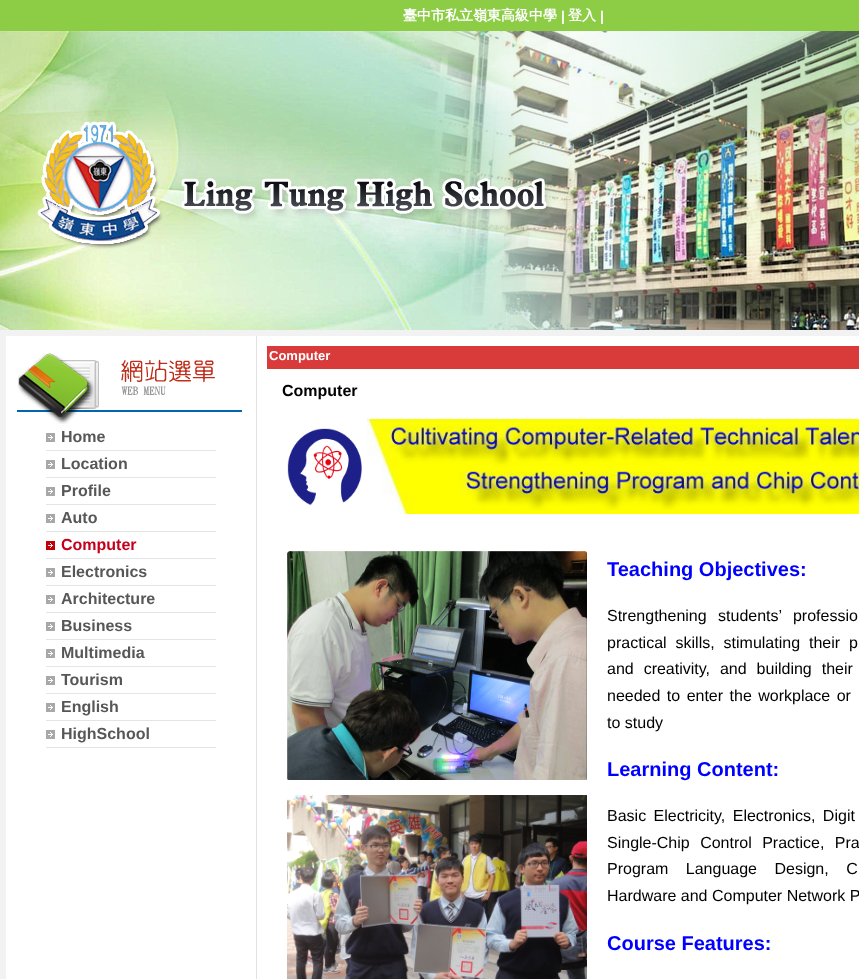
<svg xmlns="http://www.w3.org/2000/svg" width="859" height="979">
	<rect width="100%" height="100%" fill="#FFFFFF" />
	<rect x="0" y="0" width="859" height="31" fill="#8DCC45" />
	<text x="403" y="20" font-family="WenQuanYi Zen Hei" font-size="14" font-weight="700" fill="#FFFFFF">臺中市私立嶺東高級中學</text>
	<text x="561" y="21" font-family="Liberation Sans" font-size="14" font-weight="700" fill="#FFFFFF">|</text>
	<text x="568" y="20" font-family="WenQuanYi Zen Hei" font-size="14" font-weight="700" fill="#FFFFFF">登入</text>
	<text x="600" y="21" font-family="Liberation Sans" font-size="14" font-weight="700" fill="#FFFFFF">|</text>
	<image x="0" y="31" width="859" height="299" href="assets/img1.png" />
	<rect x="3" y="333" width="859" height="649" fill="none" stroke="#F2F2F2" stroke-width="6" />
	<image x="17" y="353" width="225" height="71" href="assets/img2.png" />
	<rect x="46" y="450" width="170" height="1" fill="#E4E4E4" />
	<image x="46" y="433" width="9" height="9" href="assets/img3.png" />
	<text x="61" y="442" font-family="Liberation Sans" font-size="16" font-weight="700" fill="#575757">Home</text>
	<rect x="46" y="477" width="170" height="1" fill="#E4E4E4" />
	<image x="46" y="460" width="9" height="9" href="assets/img3.png" />
	<text x="61" y="469" font-family="Liberation Sans" font-size="16" font-weight="700" fill="#575757">Location</text>
	<rect x="46" y="504" width="170" height="1" fill="#E4E4E4" />
	<image x="46" y="487" width="9" height="9" href="assets/img3.png" />
	<text x="61" y="496" font-family="Liberation Sans" font-size="16" font-weight="700" fill="#575757">Profile</text>
	<rect x="46" y="531" width="170" height="1" fill="#E4E4E4" />
	<image x="46" y="514" width="9" height="9" href="assets/img3.png" />
	<text x="61" y="523" font-family="Liberation Sans" font-size="16" font-weight="700" fill="#575757">Auto</text>
	<rect x="46" y="558" width="170" height="1" fill="#E4E4E4" />
	<image x="46" y="541" width="9" height="9" href="assets/img4.png" />
	<text x="61" y="550" font-family="Liberation Sans" font-size="16" font-weight="700" fill="#C5001C">Computer</text>
	<rect x="46" y="585" width="170" height="1" fill="#E4E4E4" />
	<image x="46" y="568" width="9" height="9" href="assets/img3.png" />
	<text x="61" y="577" font-family="Liberation Sans" font-size="16" font-weight="700" fill="#575757">Electronics</text>
	<rect x="46" y="612" width="170" height="1" fill="#E4E4E4" />
	<image x="46" y="595" width="9" height="9" href="assets/img3.png" />
	<text x="61" y="604" font-family="Liberation Sans" font-size="16" font-weight="700" fill="#575757">Architecture</text>
	<rect x="46" y="639" width="170" height="1" fill="#E4E4E4" />
	<image x="46" y="622" width="9" height="9" href="assets/img3.png" />
	<text x="61" y="631" font-family="Liberation Sans" font-size="16" font-weight="700" fill="#575757">Business</text>
	<rect x="46" y="666" width="170" height="1" fill="#E4E4E4" />
	<image x="46" y="649" width="9" height="9" href="assets/img3.png" />
	<text x="61" y="658" font-family="Liberation Sans" font-size="16" font-weight="700" fill="#575757">Multimedia</text>
	<rect x="46" y="693" width="170" height="1" fill="#E4E4E4" />
	<image x="46" y="676" width="9" height="9" href="assets/img3.png" />
	<text x="61" y="685" font-family="Liberation Sans" font-size="16" font-weight="700" fill="#575757">Tourism</text>
	<rect x="46" y="720" width="170" height="1" fill="#E4E4E4" />
	<image x="46" y="703" width="9" height="9" href="assets/img3.png" />
	<text x="61" y="712" font-family="Liberation Sans" font-size="16" font-weight="700" fill="#575757">English</text>
	<rect x="46" y="747" width="170" height="1" fill="#E4E4E4" />
	<image x="46" y="730" width="9" height="9" href="assets/img3.png" />
	<text x="61" y="739" font-family="Liberation Sans" font-size="16" font-weight="700" fill="#575757">HighSchool</text>
	<rect x="256" y="336" width="1" height="643" fill="#E2E2E2" />
	<rect x="267" y="346" width="592" height="23" fill="#D93A3A" />
	<text x="269" y="360" font-family="Liberation Sans" font-size="13" font-weight="700" fill="#FFFFFF">Computer</text>
	<text x="282" y="396" font-family="Liberation Sans" font-size="16" font-weight="700" fill="#000000">Computer</text>
	<image x="287" y="428" width="75" height="78" href="assets/img5.png" />
	<image x="367" y="418" width="492" height="96" href="assets/img6.png" />
	<image x="287" y="551" width="300" height="229" href="assets/img7.png" />
	<image x="287" y="795" width="300" height="184" href="assets/img8.png" />
	<text x="607" y="576" font-family="Liberation Sans" font-size="20" font-weight="700" fill="#0000FF">Teaching Objectives:</text>
	<g font-family="Liberation Sans" font-size="16" fill="#000000">
		<text x="607" y="621" word-spacing="7">Strengthening students’ professio</text>
		<text x="607" y="648" word-spacing="4.5">practical skills, stimulating their p</text>
		<text x="607" y="674" word-spacing="5.5">and creativity, and building their</text>
		<text x="607" y="701" word-spacing="2">needed to enter the workplace or</text>
		<text x="607" y="728">to study</text>
	</g>
	<text x="607" y="776" font-family="Liberation Sans" font-size="20" font-weight="700" fill="#0000FF">Learning Content:</text>
	<g font-family="Liberation Sans" font-size="16" fill="#000000">
		<text x="607" y="821" word-spacing="3">Basic Electricity, Electronics, Digit</text>
		<text x="607" y="848" word-spacing="6">Single-Chip Control Practice, Pra</text>
		<text x="607" y="874" word-spacing="13">Program Language Design, C</text>
		<text x="607" y="901">Hardware and Computer Network P</text>
	</g>
	<text x="607" y="950" font-family="Liberation Sans" font-size="20" font-weight="700" fill="#0000FF">Course Features:</text>
</svg>
